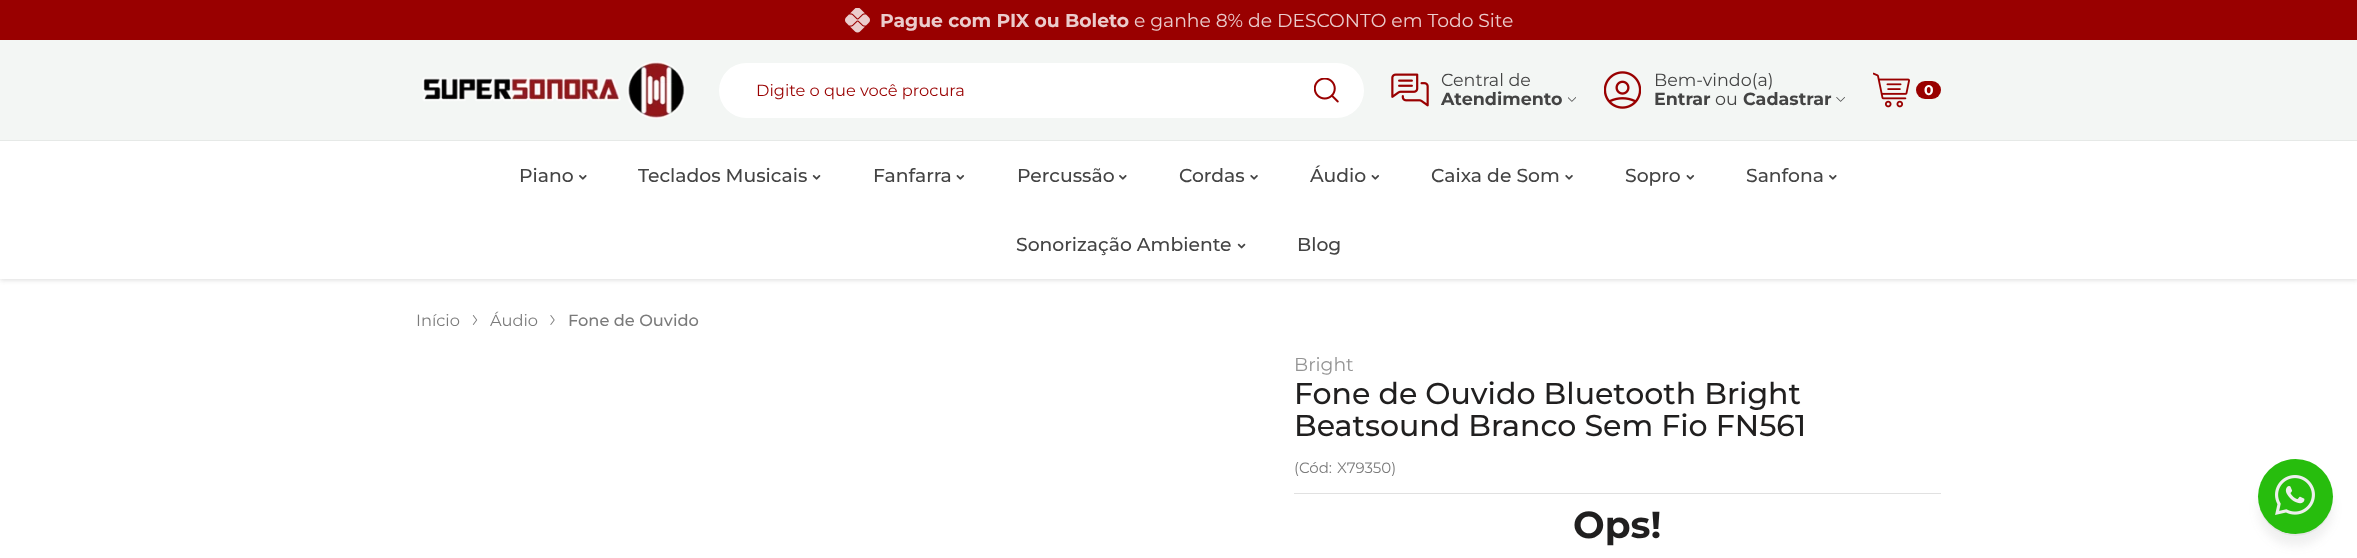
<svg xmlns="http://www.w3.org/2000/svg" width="2357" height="558">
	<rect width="100%" height="100%" fill="#FFFFFF" />
	<rect x="0" y="0" width="2357" height="40" fill="#990000" />
	<image x="845" y="8" width="25" height="25" href="assets/img1.png" />
	<text x="880" y="27" font-family="Montserrat" font-size="18.75" font-weight="700" fill="#EBCCCC">Pague com PIX ou Boleto</text>
	<text x="1134" y="27" font-family="Montserrat" font-size="18.75" fill="#EBCCCC">e ganhe 8% de DESCONTO em Todo Site</text>
	<rect x="0" y="143" width="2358" height="137" fill="#525252" fill-opacity="0.2" filter="blur(2.5px)" />
	<rect x="0" y="40" width="2357" height="100" fill="#F3F6F4" />
	<rect x="0" y="140" width="2357" height="1" fill="#E6E9E7" />
	<image x="422" y="61" width="264" height="58" href="assets/img2.png" />
	<rect x="719" y="63" width="645" height="55" rx="27.5" fill="#FFFFFF" />
	<text x="756" y="96" font-family="Montserrat" font-size="16.25" fill="#990000">Digite o que você procura</text>
	<image x="1314" y="78" width="25" height="25" href="assets/img3.png" />
	<image x="1391" y="73" width="38" height="34" href="assets/img4.png" />
	<text x="1441" y="86" font-family="Montserrat" font-size="17.5" fill="#444444">Central de</text>
	<text x="1441" y="105" font-family="Montserrat" font-size="17.5" font-weight="700" fill="#444444">Atendimento</text>
	<image x="1568" y="97" width="8" height="5" href="assets/img5.png" />
	<image x="1604" y="71" width="37" height="38" href="assets/img6.png" />
	<text x="1654" y="86" font-family="Montserrat" font-size="17.5" fill="#444444">Bem-vindo(a)</text>
	<text x="1654" y="105" font-family="Montserrat" font-size="17.5" font-weight="700" fill="#444444">Entrar</text>
	<text x="1715" y="105" font-family="Montserrat" font-size="17.5" fill="#444444">ou</text>
	<text x="1743" y="105" font-family="Montserrat" font-size="17.5" font-weight="700" fill="#444444">Cadastrar</text>
	<image x="1836" y="97" width="9" height="5" href="assets/img7.png" />
	<image x="1873" y="72" width="37" height="36" href="assets/img8.png" />
	<rect x="1916" y="81" width="25" height="18" rx="9" fill="#990000" />
	<text x="1924" y="95" font-family="Montserrat" font-size="14" font-weight="700" fill="#FFFFFF">0</text>
	<rect x="0" y="141" width="2357" height="138" fill="#FFFFFF" />
	<text x="519" y="182" font-family="Montserrat" font-size="18.75" font-weight="500" fill="#444444">Piano</text>
	<image x="579" y="175" width="8" height="5" href="assets/img9.png" />
	<text x="638" y="182" font-family="Montserrat" font-size="18.75" font-weight="500" fill="#444444">Teclados Musicais</text>
	<image x="812" y="175" width="9" height="5" href="assets/img10.png" />
	<text x="873" y="182" font-family="Montserrat" font-size="18.75" font-weight="500" fill="#444444">Fanfarra</text>
	<image x="956" y="175" width="9" height="5" href="assets/img11.png" />
	<text x="1017" y="182" font-family="Montserrat" font-size="18.75" font-weight="500" fill="#444444">Percussão</text>
	<image x="1119" y="175" width="8" height="5" href="assets/img9.png" />
	<text x="1179" y="182" font-family="Montserrat" font-size="18.75" font-weight="500" fill="#444444">Cordas</text>
	<image x="1250" y="175" width="8" height="5" href="assets/img12.png" />
	<text x="1310" y="182" font-family="Montserrat" font-size="18.75" font-weight="500" fill="#444444">Áudio</text>
	<image x="1371" y="175" width="9" height="5" href="assets/img11.png" />
	<text x="1431" y="182" font-family="Montserrat" font-size="18.75" font-weight="500" fill="#444444">Caixa de Som</text>
	<image x="1565" y="175" width="8" height="5" href="assets/img12.png" />
	<text x="1625" y="182" font-family="Montserrat" font-size="18.75" font-weight="500" fill="#444444">Sopro</text>
	<image x="1686" y="175" width="9" height="5" href="assets/img11.png" />
	<text x="1746" y="182" font-family="Montserrat" font-size="18.75" font-weight="500" fill="#444444">Sanfona</text>
	<image x="1829" y="175" width="8" height="5" href="assets/img9.png" />
	<text x="1016" y="251" font-family="Montserrat" font-size="18.75" font-weight="500" fill="#444444">Sonorização Ambiente</text>
	<image x="1237" y="243" width="9" height="6" href="assets/img13.png" />
	<text x="1297" y="251" font-family="Montserrat" font-size="18.75" font-weight="500" fill="#444444">Blog</text>
	<text x="416" y="326" font-family="Montserrat" font-size="16.25" fill="#7B7B7B">Início</text>
	<image x="472" y="315" width="6" height="10" href="assets/img14.png" />
	<text x="490" y="326" font-family="Montserrat" font-size="16.25" fill="#7B7B7B">Áudio</text>
	<image x="550" y="315" width="5" height="10" href="assets/img15.png" />
	<text x="568" y="326" font-family="Montserrat" font-size="16.25" font-weight="500" fill="#7B7B7B">Fone de Ouvido</text>
	<rect x="1294" y="493" width="647" height="1" fill="#E1E1E1" />
	<text x="1294" y="371" font-family="Montserrat" font-size="18.75" fill="#949494">Bright</text>
	<g font-family="Montserrat" font-size="30" font-weight="500" fill="#201F1F">
		<text x="1294" y="404">Fone de Ouvido Bluetooth Bright</text>
		<text x="1294" y="436">Beatsound Branco Sem Fio FN561</text>
	</g>
	<g font-family="Montserrat" font-size="15" fill="#7B7B7B">
		<text x="1294" y="473">(Cód:</text>
		<text x="1337" y="473">X79350)</text>
	</g>
	<text x="1573" y="538" font-family="Montserrat" font-size="37.5" font-weight="700" fill="#201F1F">Ops!</text>
	<rect x="2258" y="471" width="75" height="75" rx="37.5" fill="#676767" fill-opacity="0.1" filter="blur(5px)" />
	<rect x="2258" y="461" width="75" height="75" rx="37.5" fill="#000000" fill-opacity="0.04" filter="blur(0.5px)" />
	<circle cx="2295.5" cy="496.5" r="37.5" fill="#27BD0D" />
	<image x="2275" y="475" width="40" height="40" href="assets/img16.png" />
</svg>
